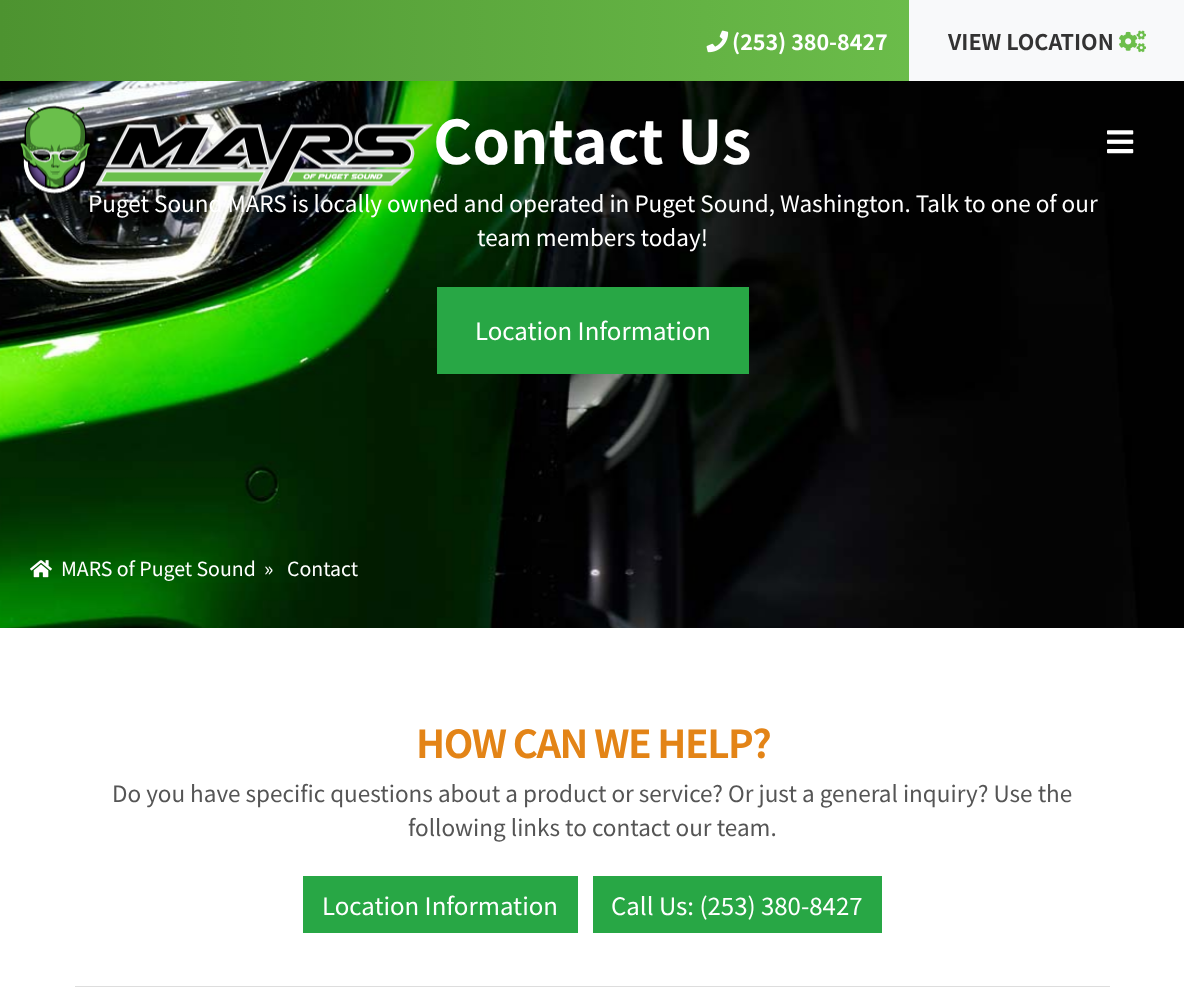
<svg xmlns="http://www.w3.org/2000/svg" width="1184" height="987">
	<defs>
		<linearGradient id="g1" gradientUnits="userSpaceOnUse" x1="0" y1="41" x2="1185" y2="40"><stop offset="0" stop-color="#4D9330" /><stop offset="0.8" stop-color="#6CBE4B" /></linearGradient>
	</defs>
	<rect width="100%" height="100%" fill="#FFFFFF" />
	<rect x="0" y="0" width="909" height="81" fill="url(#g1)" />
	<image x="706" y="30" width="23" height="23" href="assets/img1.png" />
	<text x="732" y="50" font-family="Noto Sans SC" font-size="21.5" font-weight="700" fill="#FFFFFF">(253) 380-8427</text>
	<rect x="909" y="0" width="275" height="81" fill="#F8F9FA" />
	<text x="948" y="50" font-family="Noto Sans SC" font-size="21.5" font-weight="700" fill="#333333">VIEW LOCATION</text>
	<image x="1119" y="30" width="27" height="23" href="assets/img2.png" />
	<image x="0" y="81" width="1184" height="547" href="assets/img5.png" />
	<text x="88" y="212" font-family="Noto Sans SC" font-size="22.5" fill="#FFFFFF">Puget Sound MARS is locally owned and operated in Puget Sound, Washington. Talk to one of our</text>
	<image x="20" y="105" width="413" height="92" href="assets/img3.png" />
	<image x="1107" y="130" width="27" height="24" href="assets/img4.png" />
	<text x="433" y="164" font-family="Noto Sans SC" font-size="60" font-weight="700" fill="#FFFFFF">Contact Us</text>
	<text x="477" y="246" font-family="Noto Sans SC" font-size="22.5" fill="#FFFFFF">team members today!</text>
	<rect x="437" y="287" width="312" height="87" fill="#28A745" />
	<text x="475" y="340" font-family="Noto Sans SC" font-size="24" fill="#FFFFFF">Location Information</text>
	<image x="30" y="560" width="22" height="18" href="assets/img6.png" />
	<g font-family="Noto Sans SC" font-size="19.5" fill="#FFFFFF">
		<text x="61" y="576">MARS of Puget Sound</text>
		<text x="264" y="576">»</text>
		<text x="287" y="576">Contact</text>
	</g>
	<text x="416" y="758" font-family="Noto Sans SC" font-size="38.5" font-weight="700" letter-spacing="-1.5" fill="#E38417">HOW CAN WE HELP?</text>
	<g font-family="Noto Sans SC" font-size="22.5" fill="#555555">
		<text x="112" y="802">Do you have specific questions about a product or service? Or just a general inquiry? Use the</text>
		<text x="408" y="836">following links to contact our team.</text>
	</g>
	<rect x="303" y="876" width="275" height="57" fill="#28A745" />
	<text x="322" y="915" font-family="Noto Sans SC" font-size="24" fill="#FFFFFF">Location Information</text>
	<rect x="593" y="876" width="289" height="57" fill="#28A745" />
	<text x="611" y="915" font-family="Noto Sans SC" font-size="24" fill="#FFFFFF">Call Us: (253) 380-8427</text>
	<rect x="75" y="986" width="1035" height="1" fill="#DDDDDD" />
</svg>
